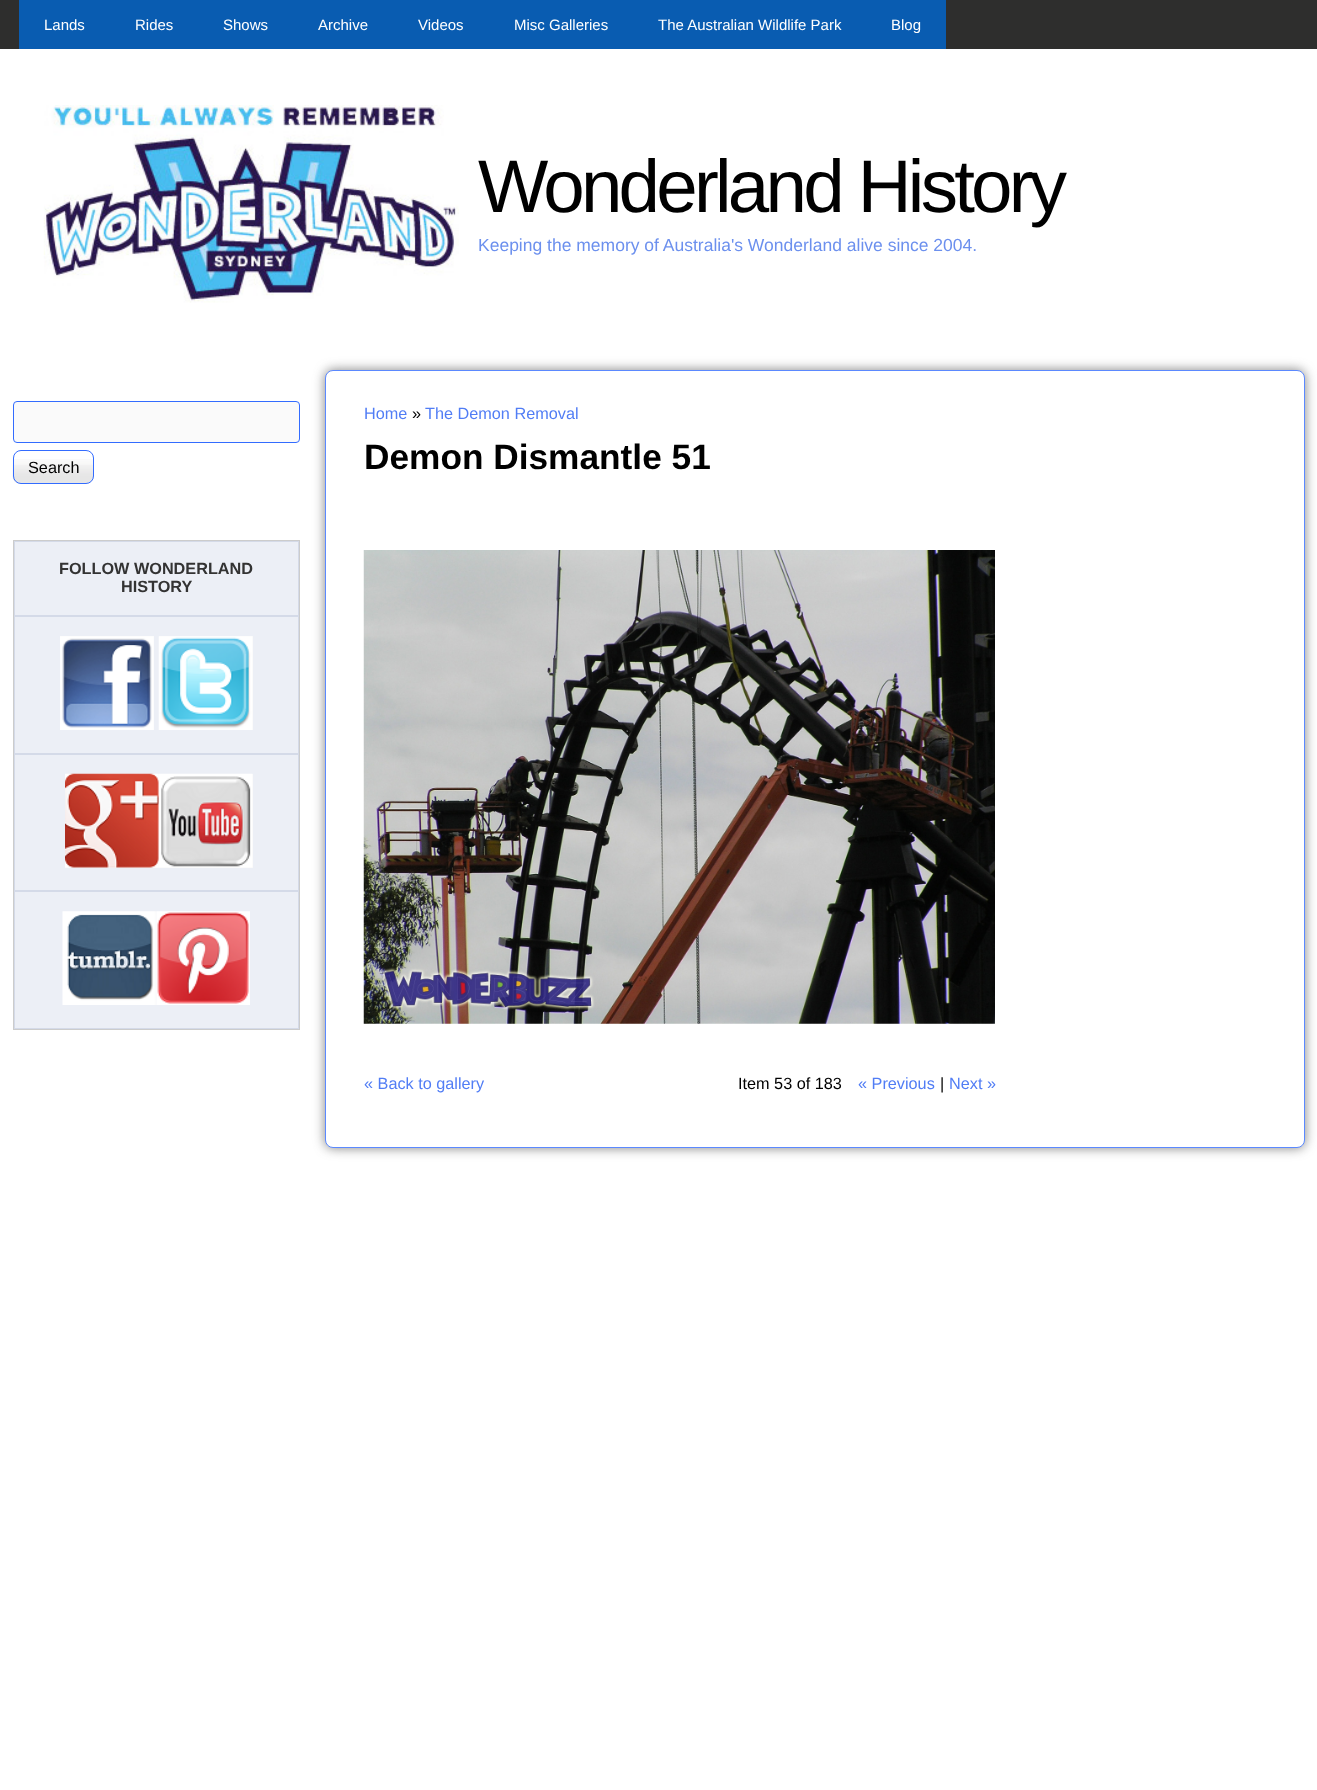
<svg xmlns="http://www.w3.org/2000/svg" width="1317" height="1790">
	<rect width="100%" height="100%" fill="#FFFFFF" />
	<rect x="0" y="0" width="1317" height="49" fill="#2E2E2D" />
	<rect x="19" y="0" width="927" height="5" fill="#095CB1" />
	<rect x="19" y="5" width="927" height="44" fill="#095CB1" />
	<g font-family="Liberation Sans" font-size="15" fill="#FFFFFF">
		<text x="44" y="30">Lands</text>
		<text x="135" y="30">Rides</text>
		<text x="223" y="30">Shows</text>
		<text x="318" y="30">Archive</text>
		<text x="418" y="30">Videos</text>
		<text x="514" y="30">Misc Galleries</text>
		<text x="658" y="30">The Australian Wildlife Park</text>
		<text x="891" y="30">Blog</text>
	</g>
	<image x="43" y="105" width="416" height="198" href="assets/img1.png" />
	<text x="478" y="212" font-family="Liberation Sans" font-size="74.5" letter-spacing="-3.75" fill="#000000">Wonderland History</text>
	<text x="478" y="251" font-family="Liberation Sans" font-size="17.5" fill="#6C90EE">Keeping the memory of Australia's Wonderland alive since 2004.</text>
	<rect x="13.5" y="401.5" width="286" height="41" rx="3.5" fill="#FAFAFA" stroke="#336CFF" />
	<image x="12" y="459" width="82" height="25" href="assets/img2.png" />
	<rect x="13.5" y="450.5" width="80" height="33" rx="7.5" fill="none" stroke="#336CFF" />
	<text x="28" y="473" font-family="Liberation Sans" font-size="16.25" fill="#000000">Search</text>
	<rect x="13.5" y="540.5" width="286" height="489" fill="none" stroke="#CCCCCC" />
	<rect x="14.5" y="541.5" width="284" height="74" fill="#ECEFF6" stroke="#D4DAE8" />
	<g font-family="Liberation Sans" font-size="16.25" font-weight="700" fill="#333333">
		<text x="59" y="574">FOLLOW WONDERLAND</text>
		<text x="121" y="592">HISTORY</text>
	</g>
	<rect x="14.5" y="616.5" width="284" height="137" fill="#ECEFF6" stroke="#D4DAE8" />
	<rect x="60" y="636" width="94" height="94" fill="#F7F7F7" />
	<image x="60" y="636" width="94" height="94" href="assets/img3.png" />
	<rect x="159" y="636" width="94" height="94" fill="#F7F7F7" />
	<image x="158" y="636" width="95" height="94" href="assets/img4.png" />
	<rect x="14.5" y="754.5" width="284" height="136" fill="#ECEFF6" stroke="#D4DAE8" />
	<rect x="65" y="774" width="188" height="94" fill="#F7F7F7" />
	<image x="65" y="773" width="94" height="95" href="assets/img5.png" />
	<image x="158" y="773" width="95" height="95" href="assets/img6.png" />
	<rect x="14.5" y="891.5" width="284" height="137" fill="#ECEFF6" stroke="#D4DAE8" />
	<image x="62" y="911" width="94" height="94" href="assets/img7.png" />
	<image x="156" y="911" width="94" height="94" href="assets/img8.png" />
	<rect x="325" y="370" width="980" height="778" rx="8" fill="#4C4C4C" fill-opacity="0.7" filter="blur(6px)" />
	<rect x="325.5" y="370.5" width="979" height="777" rx="7.5" fill="#FFFFFF" stroke="#5B89FF" />
	<text x="364" y="419" font-family="Liberation Sans" font-size="16.25" fill="#517DF5">Home</text>
	<text x="412" y="419" font-family="Liberation Sans" font-size="16.25" fill="#000000">»</text>
	<text x="425" y="419" font-family="Liberation Sans" font-size="16.25" fill="#517DF5">The Demon Removal</text>
	<text x="364" y="469" font-family="Liberation Sans" font-size="35.25" font-weight="700" fill="#000000">Demon Dismantle 51</text>
	<image x="363" y="550" width="632" height="474" href="assets/img9.png" />
	<text x="364" y="1089" font-family="Liberation Sans" font-size="16.25" fill="#517DF5">« Back to gallery</text>
	<text x="738" y="1089" font-family="Liberation Sans" font-size="16.25" fill="#000000">Item 53 of 183</text>
	<text x="858" y="1089" font-family="Liberation Sans" font-size="16.25" fill="#517DF5">« Previous</text>
	<text x="940" y="1089" font-family="Liberation Sans" font-size="16.25" fill="#000000">|</text>
	<text x="949" y="1089" font-family="Liberation Sans" font-size="16.25" fill="#517DF5">Next »</text>
</svg>
